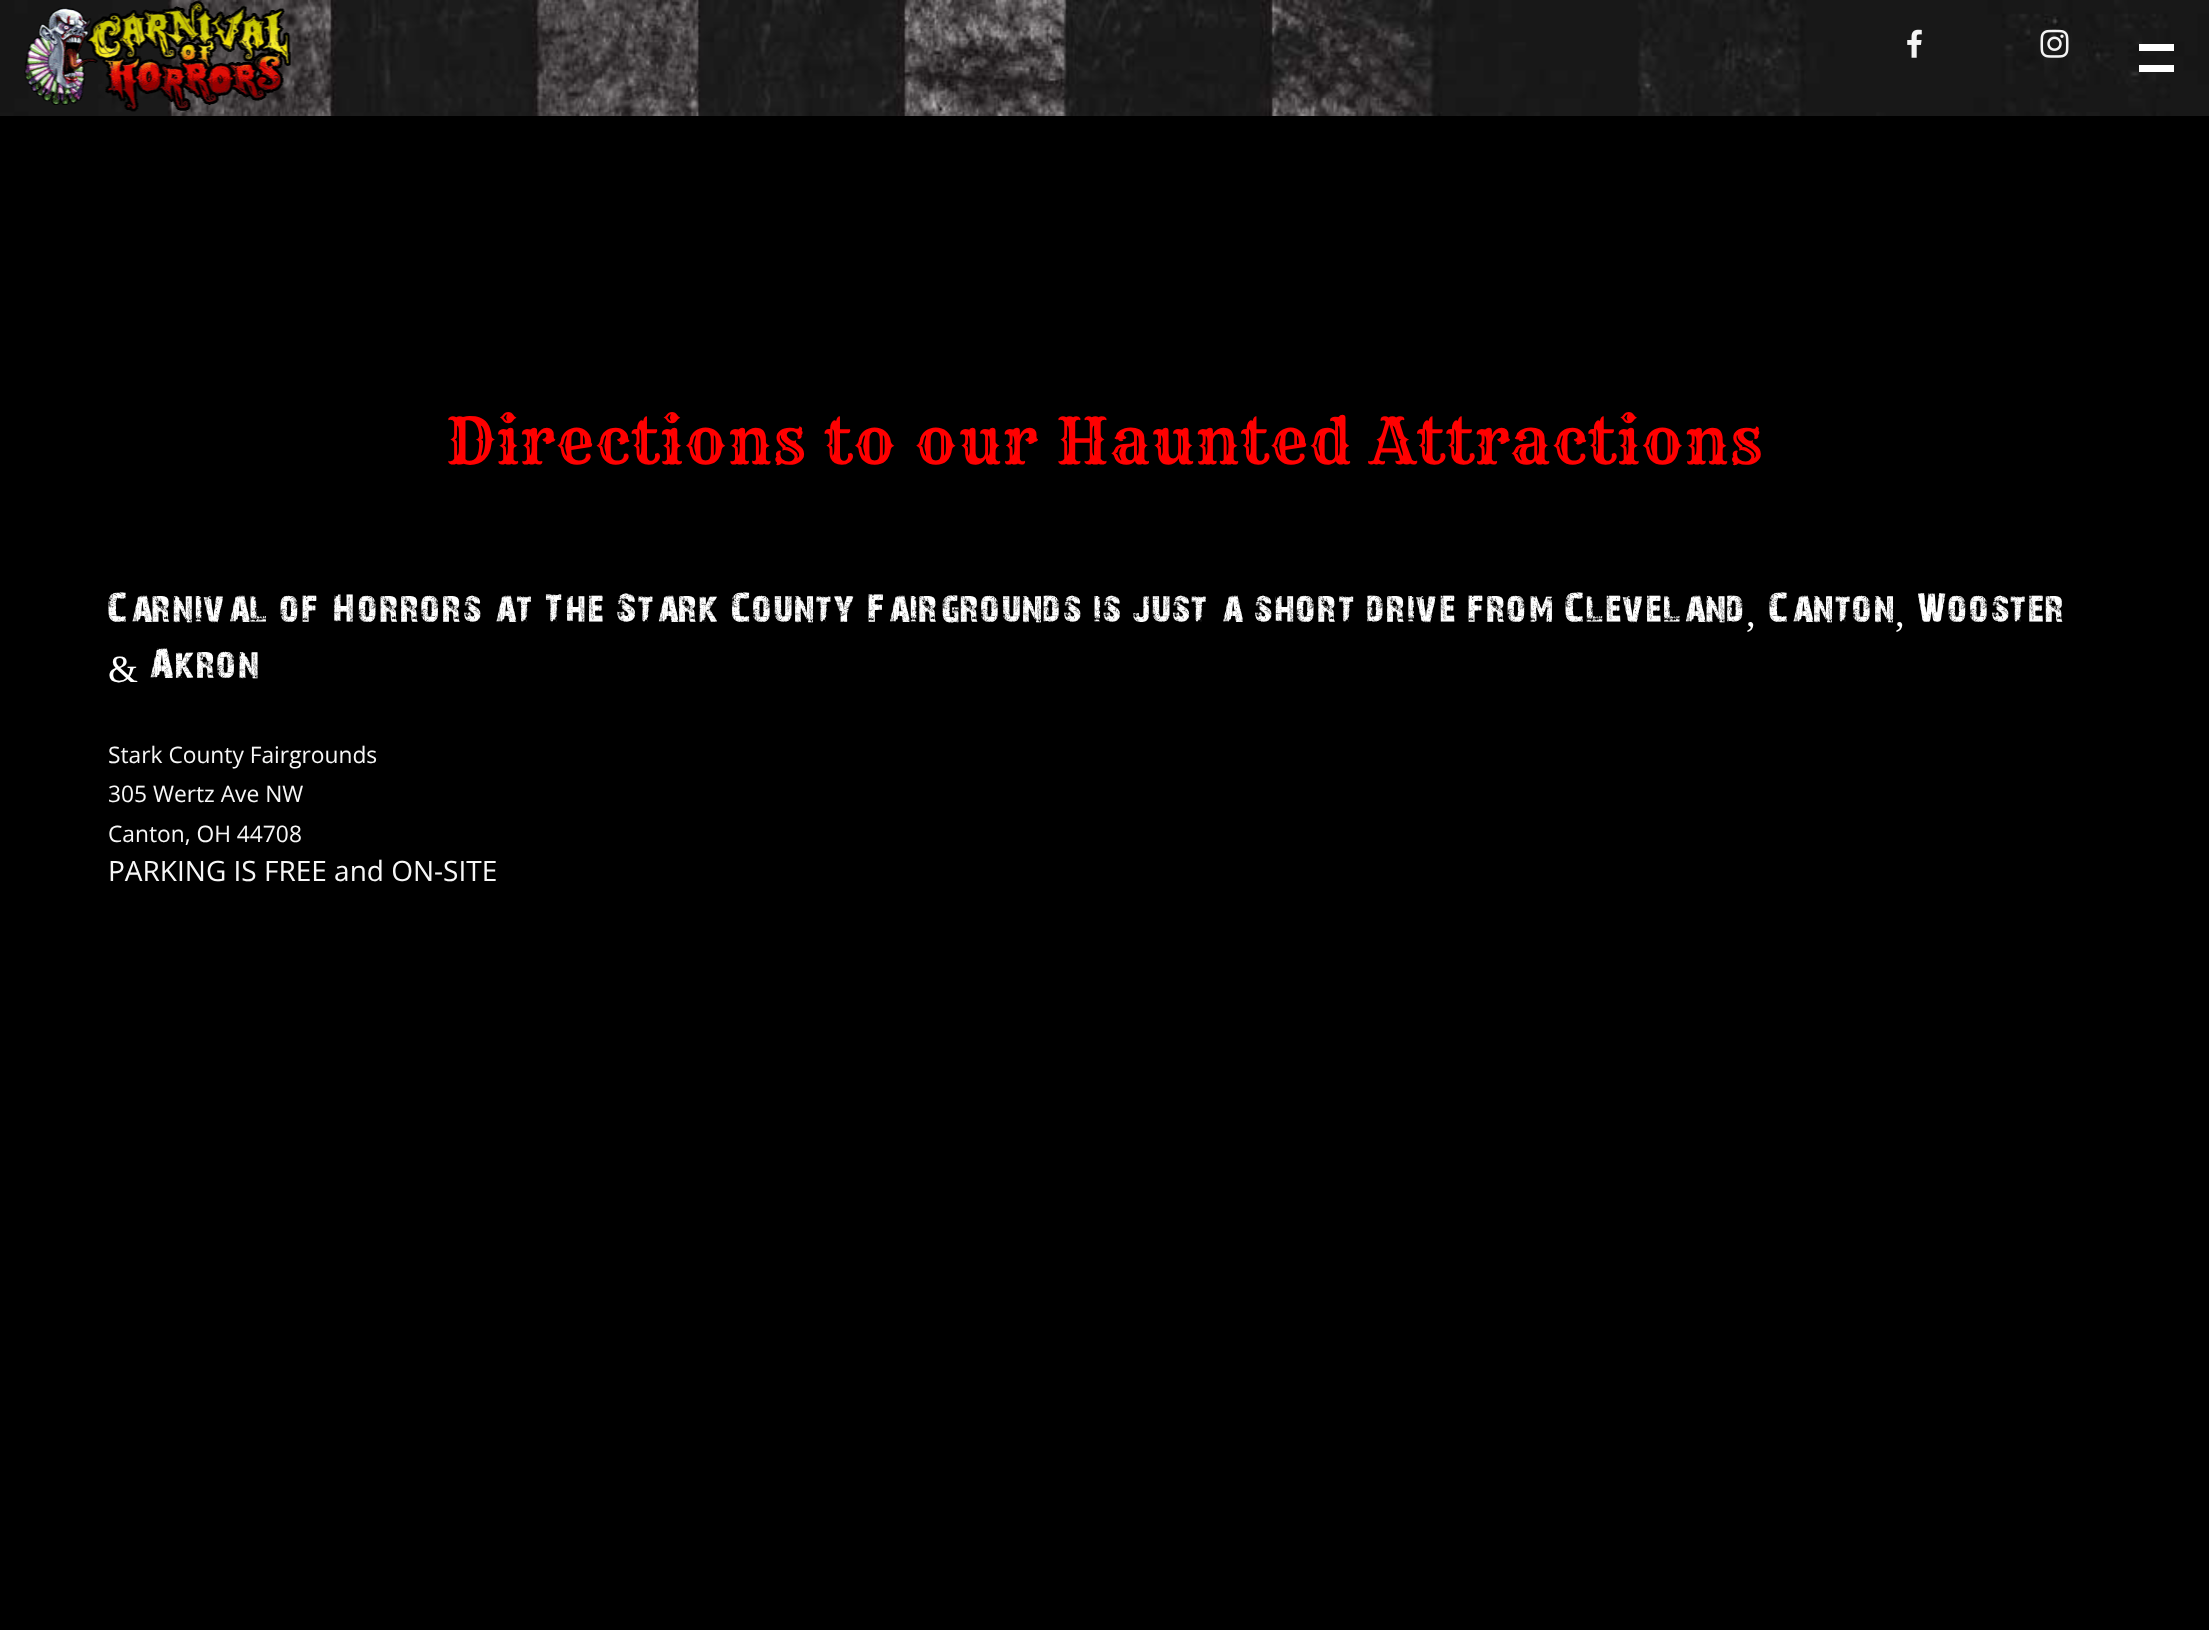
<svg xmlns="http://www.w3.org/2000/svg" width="2209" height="1630">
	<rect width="100%" height="100%" fill="#000000" />
	<image x="0" y="0" width="2209" height="116" href="assets/img1.png" />
	<image x="24" y="1" width="267" height="111" href="assets/img2.png" />
	<image x="1907" y="29" width="15" height="29" href="assets/img3.png" />
	<image x="2040" y="29" width="29" height="29" href="assets/img4.png" />
	<rect x="2139" y="44" width="35" height="7" fill="#FFFFFF" />
	<rect x="2139" y="65" width="35" height="7" fill="#FFFFFF" />
	<text x="446" y="464" font-family="Rye" font-size="63" letter-spacing="1.75" fill="#FF0000">Directions to our Haunted Attractions</text>
	<g font-family="'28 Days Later'" font-size="38.5" letter-spacing="1.75" fill="#FFFFFF">
		<text x="108" y="626">Carnival of Horrors at The Stark County Fairgrounds is just a short drive from Cleveland</text>
		<text x="1769" y="626">Canton</text>
		<text x="1918" y="626">Wooster</text>
	</g>
	<g font-family="Liberation Serif" font-size="38.5" letter-spacing="1.75" fill="#FFFFFF">
		<text x="1746" y="626">,</text>
		<text x="1895" y="626">,</text>
		<text x="108" y="682">&amp;</text>
	</g>
	<text x="150" y="682" font-family="'28 Days Later'" font-size="38.5" letter-spacing="1.75" fill="#FFFFFF">Akron</text>
	<g font-family="Open Sans" font-size="22.75" fill="#F7F7F7">
		<text x="108" y="763">Stark County Fairgrounds</text>
		<text x="108" y="802">305 Wertz Ave NW</text>
		<text x="108" y="842">Canton, OH 44708</text>
	</g>
	<text x="108" y="881" font-family="Open Sans" font-size="28" fill="#F7F7F7">PARKING IS FREE and ON-SITE</text>
</svg>
